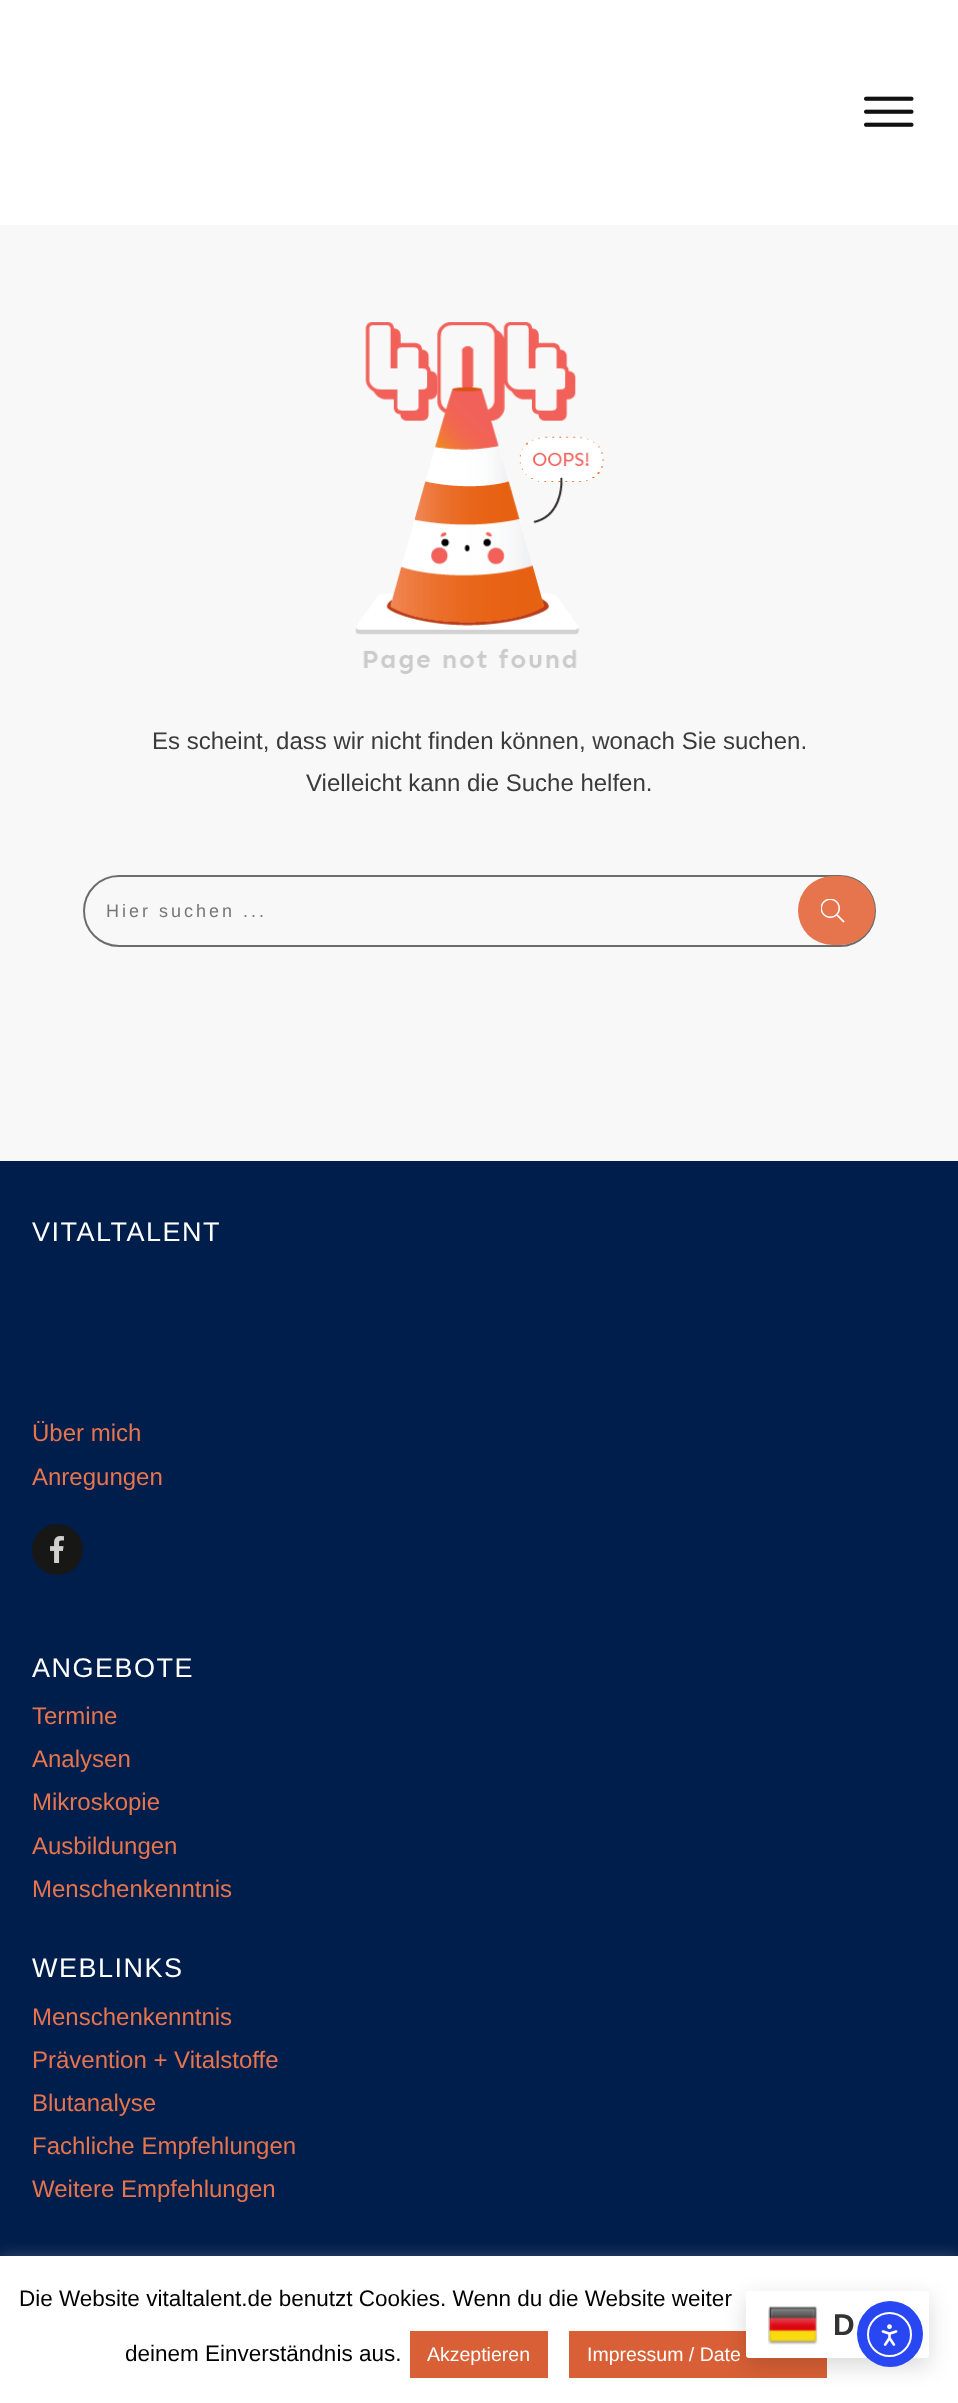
<svg xmlns="http://www.w3.org/2000/svg" width="958" height="2403">
	<rect width="100%" height="100%" fill="#F8F8F8" />
	<rect x="0" y="0" width="958" height="225" fill="#FFFFFF" />
	<image x="864" y="96" width="50" height="31" href="assets/img1.png" />
	<image x="355" y="322" width="249" height="352" href="assets/img2.png" />
	<g font-family="Liberation Sans" font-size="24" fill="#3B3B3B">
		<text x="152" y="749">Es scheint, dass wir nicht finden können, wonach Sie suchen.</text>
		<text x="306" y="791">Vielleicht kann die Suche helfen.</text>
	</g>
	<rect x="84" y="876" width="791" height="70" rx="35" fill="none" stroke="#6C6C6C" stroke-width="2" />
	<text x="106" y="917" font-family="Liberation Sans" font-size="18" letter-spacing="3" fill="#777777">Hier suchen ...</text>
	<rect x="798" y="876" width="77" height="69" rx="34.5" fill="#E6744D" />
	<image x="821" y="899" width="24" height="24" href="assets/img3.png" />
	<rect x="0" y="1161" width="958" height="1095" fill="#001E4B" />
	<text x="32" y="1241" font-family="Liberation Sans" font-size="27" letter-spacing="1.5" fill="#FFFFFF">VITALTALENT</text>
	<g font-family="Liberation Sans" font-size="24" fill="#E6744D">
		<text x="32" y="1441">Über mich</text>
		<text x="32" y="1485">Anregungen</text>
	</g>
	<circle cx="57.5" cy="1549.5" r="25.5" fill="#171716" />
	<image x="50" y="1536" width="14" height="27" href="assets/img4.png" />
	<text x="32" y="1677" font-family="Liberation Sans" font-size="27" letter-spacing="1.5" fill="#FFFFFF">ANGEBOTE</text>
	<g font-family="Liberation Sans" font-size="24" fill="#E6744D">
		<text x="32" y="1724">Termine</text>
		<text x="32" y="1767">Analysen</text>
		<text x="32" y="1810">Mikroskopie</text>
		<text x="32" y="1854">Ausbildungen</text>
		<text x="32" y="1897">Menschenkenntnis</text>
	</g>
	<text x="32" y="1977" font-family="Liberation Sans" font-size="27" letter-spacing="1.5" fill="#FFFFFF">WEBLINKS</text>
	<g font-family="Liberation Sans" font-size="24" fill="#E6744D">
		<text x="32" y="2025">Menschenkenntnis</text>
		<text x="32" y="2068">Prävention + Vitalstoffe</text>
		<text x="32" y="2111">Blutanalyse</text>
		<text x="32" y="2154">Fachliche Empfehlungen</text>
		<text x="32" y="2197">Weitere Empfehlungen</text>
	</g>
	<rect x="0" y="2255" width="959" height="147" fill="#ACABAB" fill-opacity="0.3" filter="blur(7.5px)" />
	<rect x="0" y="2256" width="958" height="147" fill="#FFFFFF" />
	<g font-family="Liberation Sans" font-size="22.5" fill="#000000">
		<text x="19" y="2306">Die Website vitaltalent.de benutzt Cookies. Wenn du die Website weiter</text>
		<text x="125" y="2361">deinem Einverständnis aus.</text>
	</g>
	<rect x="410" y="2331" width="138" height="47" fill="#D96036" />
	<text x="427" y="2361" font-family="Liberation Sans" font-size="19.5" fill="#FFFFFF">Akzeptieren</text>
	<rect x="569" y="2331" width="258" height="47" fill="#D96036" />
	<text x="587" y="2361" font-family="Liberation Sans" font-size="19.5" fill="#FFFFFF">Impressum / Date</text>
	<rect x="746" y="2298" width="183" height="68" rx="3" fill="#000000" fill-opacity="0.15" filter="blur(11px)" />
	<rect x="746" y="2291" width="183" height="67" rx="3" fill="#FFFFFF" />
	<image x="768" y="2306" width="50" height="39" href="assets/img5.png" />
	<text x="833" y="2335" font-family="Liberation Sans" font-size="30" font-weight="700" fill="#333333">D</text>
	<circle cx="890" cy="2334" r="33" fill="#2847F3" />
	<circle cx="889.5" cy="2334.5" r="21.5" fill="none" stroke="#FFFFFF" stroke-width="2" />
	<image x="881" y="2324" width="17" height="22" href="assets/img6.png" />
</svg>
